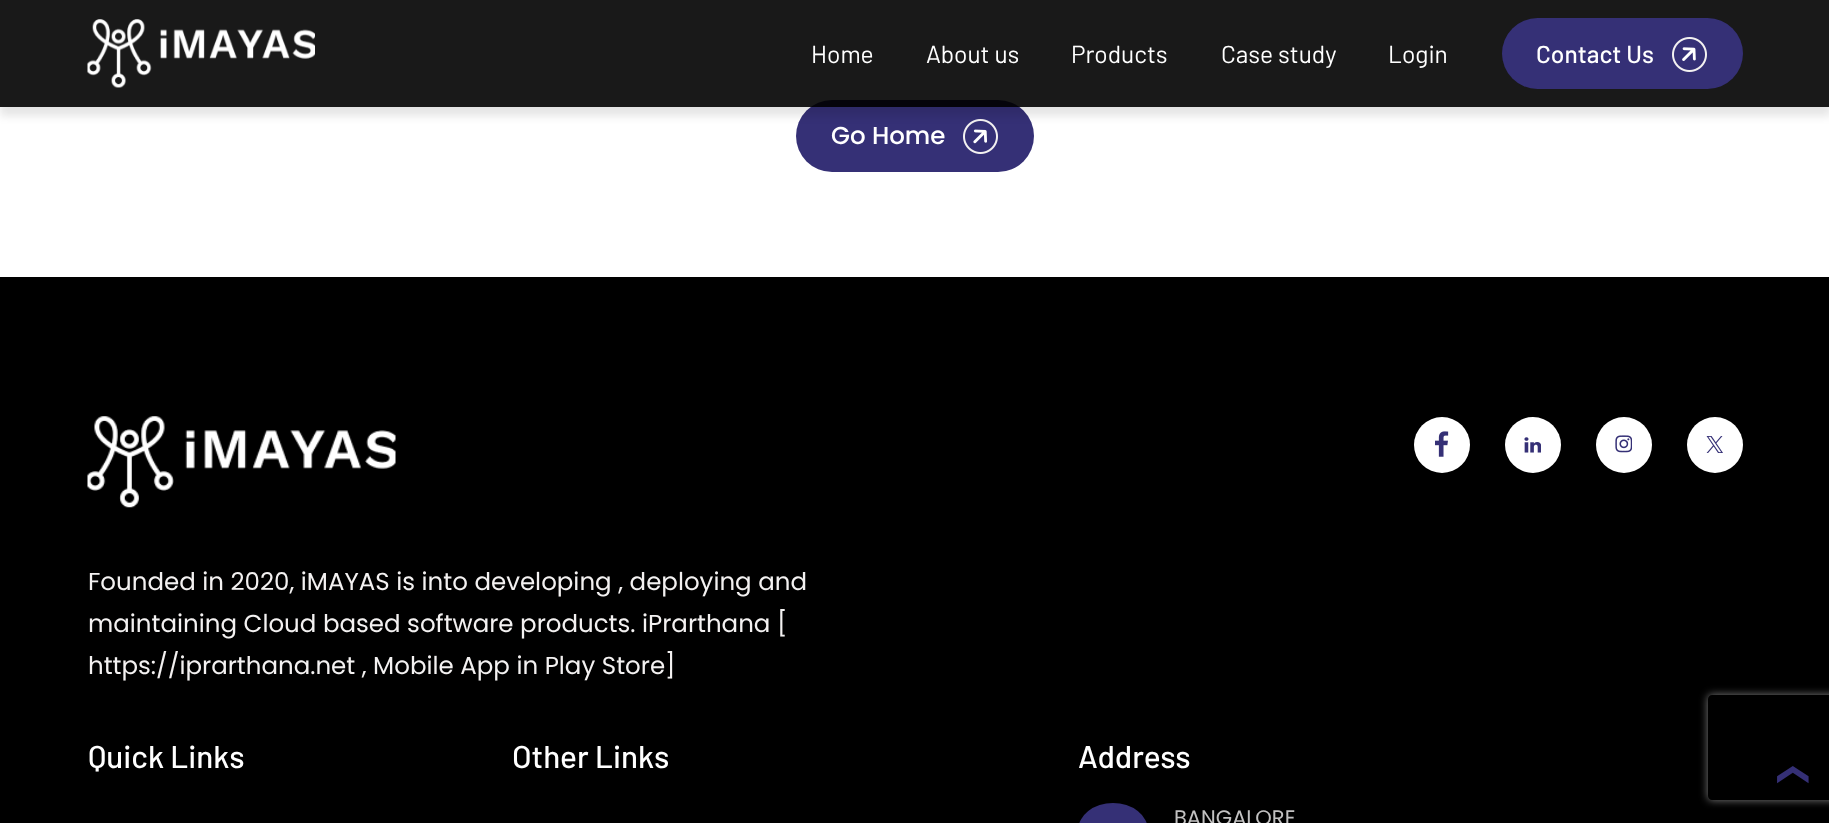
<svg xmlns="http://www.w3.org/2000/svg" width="1829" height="823">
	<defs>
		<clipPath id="clip1"><path d="M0 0H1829V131H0ZM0 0H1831V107H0Z" clip-rule="evenodd" /></clipPath>
		<clipPath id="clip2"><path d="M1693 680H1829V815H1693ZM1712 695H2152C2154 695 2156 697 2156 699V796C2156 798 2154 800 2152 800H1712C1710 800 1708 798 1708 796V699C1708 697 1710 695 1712 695Z" clip-rule="evenodd" /></clipPath>
	</defs>
	<rect width="100%" height="100%" fill="#FFFFFF" />
	<rect x="796" y="100" width="238" height="72" rx="36" fill="#353076" />
	<image x="963" y="119" width="35" height="35" href="assets/img3.png" />
	<g clip-path="url(#clip1)">
		<rect x="0" y="9" width="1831" height="107" fill="#000000" fill-opacity="0.1" filter="blur(4.5px)" />
	</g>
	<rect x="0" y="0" width="1829" height="107" fill="#000000" fill-opacity="0.9" />
	<image x="87" y="19" width="228" height="69" href="assets/img1.png" />
	<g font-family="Barlow" font-size="24.5" fill="#FFFFFF">
		<text x="811" y="63">Home</text>
		<text x="926" y="63">About us</text>
		<text x="1071" y="63">Products</text>
		<text x="1221" y="63">Case study</text>
		<text x="1388" y="63">Login</text>
	</g>
	<rect x="1502" y="18" width="241" height="71" rx="35.5" fill="#353076" />
	<text x="1536" y="63" font-family="Barlow" font-size="24.5" font-weight="500" fill="#FFFFFF">Contact Us</text>
	<image x="1672" y="37" width="35" height="35" href="assets/img2.png" />
	<text x="831" y="144" font-family="Poppins" font-size="24.5" font-weight="500" fill="#FFFFFF">Go Home</text>
	<rect x="0" y="277" width="1829" height="546" fill="#000000" />
	<circle cx="1442" cy="445" r="28" fill="#FFFFFF" />
	<image x="1435" y="431" width="14" height="26" href="assets/img4.png" />
	<circle cx="1533" cy="445" r="28" fill="#FFFFFF" />
	<image x="1524" y="437" width="17" height="16" href="assets/img5.png" />
	<circle cx="1624" cy="445" r="28" fill="#FFFFFF" />
	<image x="1615" y="435" width="17" height="18" href="assets/img6.png" />
	<circle cx="1715" cy="445" r="28" fill="#FFFFFF" />
	<image x="1706" y="436" width="17" height="17" href="assets/img7.png" />
	<image x="87" y="416" width="309" height="92" href="assets/img8.png" />
	<g font-family="Poppins" font-size="24.5" fill="#F3F1F1">
		<text x="88" y="590">Founded in 2020, iMAYAS is into developing , deploying and</text>
		<text x="88" y="632">maintaining Cloud based software products. iPrarthana [</text>
		<text x="88" y="674">https://iprarthana.net , Mobile App in Play Store]</text>
	</g>
	<g font-family="Barlow" font-size="31.5" font-weight="500" fill="#FFFFFF">
		<text x="88" y="768">Quick Links</text>
		<text x="512" y="768">Other Links</text>
		<text x="1078" y="768">Address</text>
	</g>
	<rect x="1078" y="803" width="70" height="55" rx="35" fill="#353076" />
	<text x="1174" y="825" font-family="Poppins" font-size="21" fill="#C2C1C1">BANGALORE</text>
	<g clip-path="url(#clip2)">
		<rect x="1708" y="695" width="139" height="105" rx="4" fill="#808080" filter="blur(4.5px)" />
	</g>
	<text x="1801" y="788" transform="rotate(-90 1801 788)" font-family="DejaVu Sans" font-size="31.5" fill="#353076">❯</text>
</svg>
